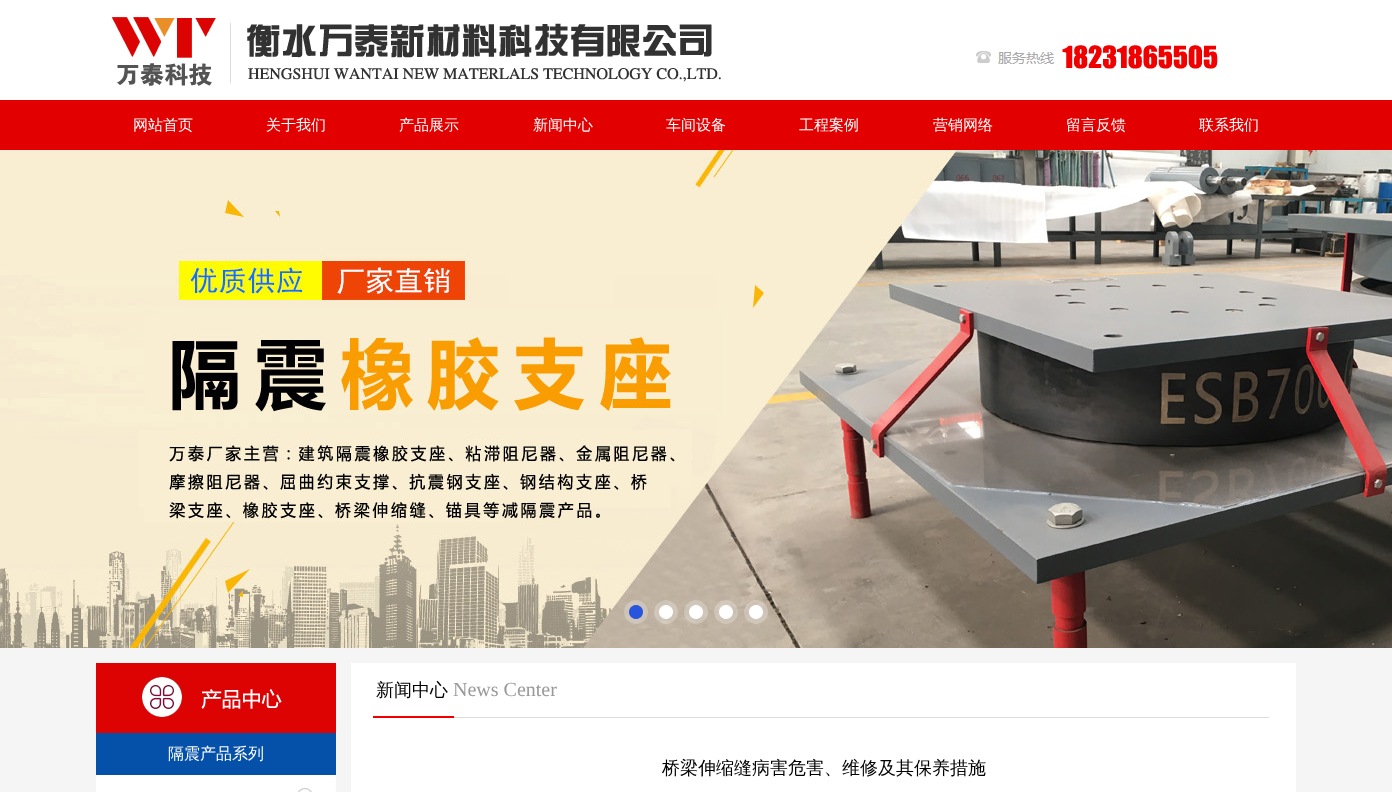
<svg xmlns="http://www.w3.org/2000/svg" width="1392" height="792">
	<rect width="100%" height="100%" fill="#F5F5F5" />
	<rect x="0" y="0" width="1392" height="100" fill="#FFFFFF" />
	<image x="112" y="17" width="1106" height="69" href="assets/img1.png" />
	<rect x="0" y="100" width="1392" height="50" fill="#E30000" />
	<g font-family="WenQuanYi Zen Hei" font-size="15" font-weight="500" fill="#FFFFFF">
		<text x="133" y="130">网站首页</text>
		<text x="266" y="130">关于我们</text>
		<text x="399" y="130">产品展示</text>
		<text x="533" y="130">新闻中心</text>
		<text x="666" y="130">车间设备</text>
		<text x="799" y="130">工程案例</text>
		<text x="933" y="130">营销网络</text>
		<text x="1066" y="130">留言反馈</text>
		<text x="1199" y="130">联系我们</text>
	</g>
	<image x="0" y="150" width="1392" height="498" href="assets/img2.png" />
	<image x="624" y="600" width="24" height="24" href="assets/img3.png" />
	<image x="654" y="600" width="24" height="24" href="assets/img4.png" />
	<image x="684" y="600" width="24" height="24" href="assets/img5.png" />
	<image x="714" y="600" width="24" height="24" href="assets/img6.png" />
	<image x="744" y="600" width="24" height="24" href="assets/img7.png" />
	<image x="96" y="663" width="240" height="70" href="assets/img8.png" />
	<rect x="96" y="733" width="240" height="42" fill="#0551A9" />
	<text x="168" y="759" font-family="WenQuanYi Zen Hei" font-size="16" font-weight="500" fill="#FFFFFF">隔震产品系列</text>
	<image x="96" y="775" width="240" height="17" href="assets/img9.png" />
	<rect x="351" y="663" width="945" height="129" fill="#FFFFFF" />
	<image x="373" y="716" width="896" height="2" href="assets/img10.png" />
	<text x="376" y="696" font-family="WenQuanYi Zen Hei" font-size="18" font-weight="500" fill="#000000">新闻中心</text>
	<text x="453" y="696" font-family="Liberation Serif" font-size="20" fill="#999999">News Center</text>
	<text x="662" y="774" font-family="WenQuanYi Zen Hei" font-size="18" font-weight="500" fill="#000000">桥梁伸缩缝病害危害、维修及其保养措施</text>
</svg>
